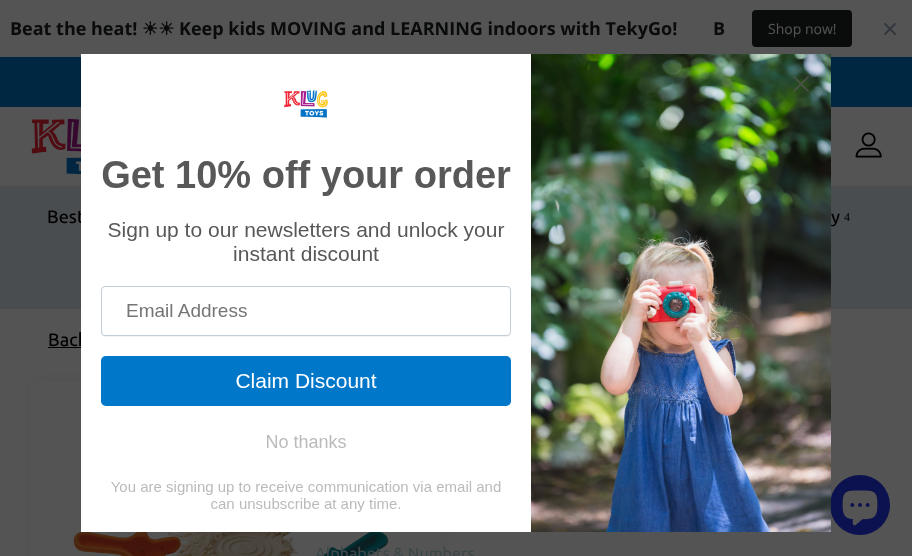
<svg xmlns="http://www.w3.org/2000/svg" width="912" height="556">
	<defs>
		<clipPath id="clip1"><rect x="10" y="18" width="716" height="21" /></clipPath>
	</defs>
	<rect width="100%" height="100%" fill="#FFFFFF" />
	<text x="10" y="35" font-family="Open Sans" font-size="18" font-weight="700" fill="#202223">Beat the heat!</text>
	<text x="142" y="35" font-family="DejaVu Sans" font-size="18" font-weight="700" fill="#202223">☀☀</text>
	<g clip-path="url(#clip1)">
		<text x="179" y="35" font-family="Open Sans" font-size="18" font-weight="700" fill="#202223">Keep kids MOVING and LEARNING indoors with TekyGo!</text>
	</g>
	<text x="713" y="35" font-family="Open Sans" font-size="18" font-weight="700" fill="#202223">B</text>
	<rect x="752" y="10" width="100" height="37" rx="4" fill="#202223" />
	<text x="768" y="34" font-family="Open Sans" font-size="14" fill="#FFFFFF">Shop now!</text>
	<image x="884" y="23" width="12" height="12" href="assets/img2.png" />
	<rect x="0" y="57" width="912" height="50" fill="#0077C8" />
	<image x="31" y="118" width="50" height="57" href="assets/img3.png" />
	<image x="855" y="132" width="27" height="26" href="assets/img4.png" />
	<rect x="0" y="186" width="912" height="123" fill="#DDE9F1" />
	<g font-family="Ubuntu" font-size="18" font-weight="500" fill="#000000">
		<text x="47" y="223">Best</text>
		<text x="831" y="223">y</text>
	</g>
	<text x="844" y="221" font-family="Liberation Serif" font-size="12" fill="#000000">4</text>
	<rect x="30" y="381" width="411" height="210" rx="8" fill="#000000" fill-opacity="0.05" filter="blur(9px)" />
	<image x="30" y="381" width="411" height="175" href="assets/img5.png" />
	<text x="315" y="559" font-family="Ubuntu" font-size="16" font-weight="500" fill="#B9D7DB">Alphabets &amp; Numbers</text>
	<text x="48" y="346" font-family="Ubuntu" font-size="18" font-weight="500" fill="#000000">Back</text>
	<rect x="48" y="347" width="33" height="1" fill="#000000" />
	<circle cx="860" cy="505" r="30" fill="#2738EE" />
	<image x="842" y="490" width="36" height="36" href="assets/img6.png" />
	<image x="0" y="0" width="912" height="556" href="assets/img1.png" />
</svg>
